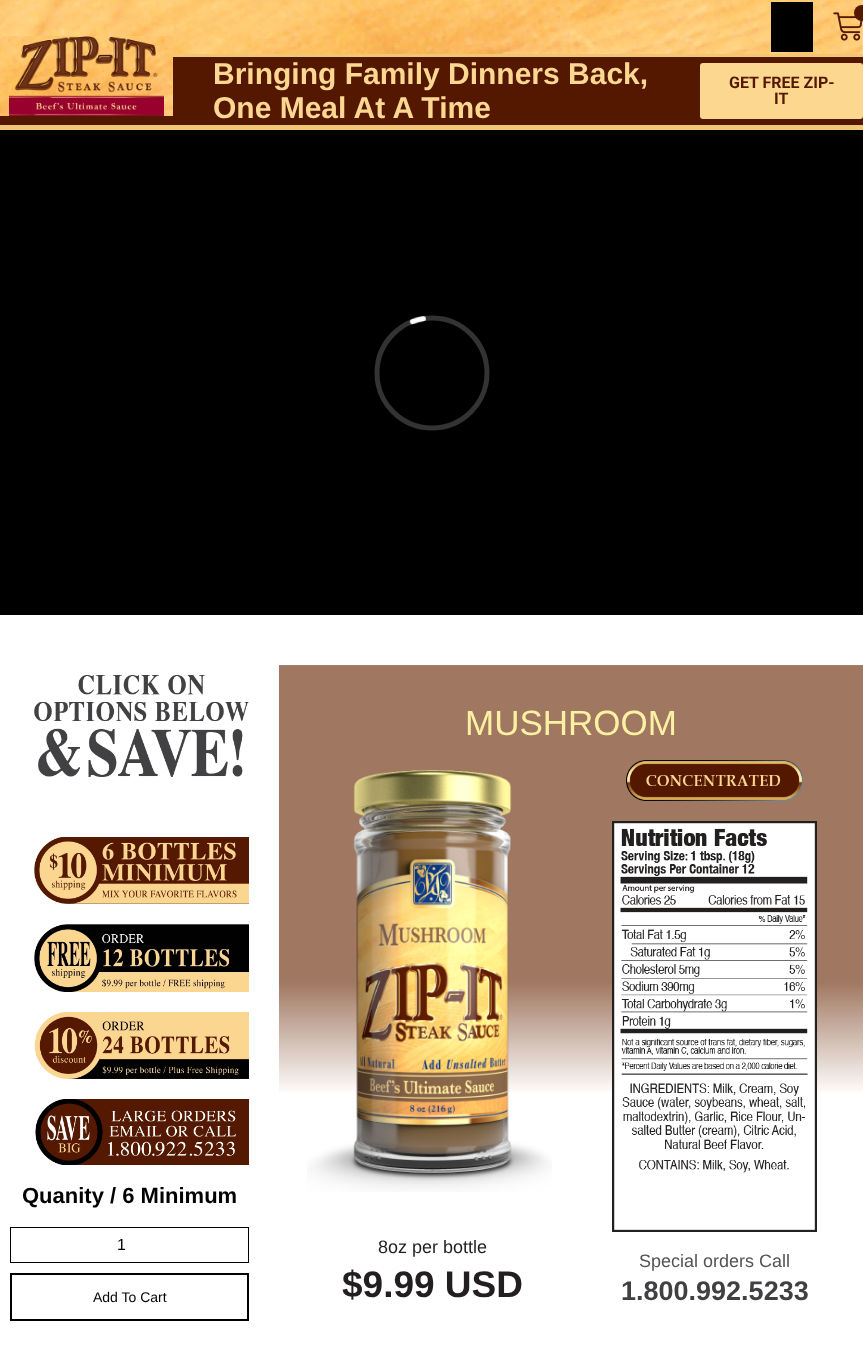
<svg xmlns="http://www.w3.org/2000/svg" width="863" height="1355">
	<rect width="100%" height="100%" fill="#FFFFFF" />
	<image x="0" y="0" width="863" height="54" href="assets/img1.png" />
	<rect x="771" y="2" width="42" height="50" fill="#000000" />
	<image x="833" y="12" width="30" height="29" href="assets/img2.png" />
	<circle cx="862" cy="13" r="8" fill="#541900" />
	<rect x="0" y="57" width="863" height="68" fill="#541800" />
	<rect x="173" y="54" width="690" height="3" fill="#F0C775" />
	<rect x="0" y="125" width="863" height="5" fill="#F0C775" />
	<image x="0" y="36" width="173" height="80" href="assets/img3.png" />
	<image x="9" y="36" width="155" height="80" href="assets/img4.png" />
	<g font-family="Liberation Sans" font-size="30" font-weight="700" fill="#FBD791">
		<text x="213" y="84">Bringing Family Dinners Back,</text>
		<text x="213" y="118">One Meal At A Time</text>
	</g>
	<rect x="700" y="63" width="163" height="56" rx="3" fill="#FBD790" />
	<g font-family="Roboto" font-size="16" font-weight="700" fill="#541800">
		<text x="729" y="88">GET FREE ZIP-</text>
		<text x="774" y="104">IT</text>
	</g>
	<rect x="0" y="130" width="863" height="485" fill="#000000" />
	<image x="374" y="315" width="116" height="116" href="assets/img5.png" />
	<image x="34" y="675" width="215" height="102" href="assets/img6.png" />
	<image x="34" y="837" width="215" height="67" href="assets/img7.png" />
	<image x="34" y="924" width="215" height="68" href="assets/img8.png" />
	<image x="34" y="1012" width="215" height="67" href="assets/img9.png" />
	<image x="35" y="1099" width="214" height="66" href="assets/img10.png" />
	<text x="22" y="1203" font-family="Liberation Sans" font-size="22" font-weight="700" fill="#020202">Quanity / 6 Minimum</text>
	<rect x="10.5" y="1227.5" width="238" height="35" fill="none" stroke="#000000" />
	<text x="117" y="1250" font-family="Liberation Sans" font-size="16" fill="#020202">1</text>
	<rect x="11" y="1274" width="237" height="46" fill="none" stroke="#000000" stroke-width="2" />
	<text x="93" y="1302" font-family="Liberation Sans" font-size="14" fill="#020202">Add To Cart</text>
	<image x="279" y="665" width="584" height="427" href="assets/img11.png" />
	<text x="465" y="735" font-family="Liberation Sans" font-size="35" fill="#FCF1A3">MUSHROOM</text>
	<image x="307" y="770" width="245" height="422" href="assets/img12.png" />
	<text x="378" y="1253" font-family="Liberation Sans" font-size="18" fill="#231F20">8oz per bottle</text>
	<text x="342" y="1297" font-family="Liberation Sans" font-size="37" font-weight="700" fill="#231F20">$9.99 USD</text>
	<image x="626" y="760" width="177" height="41" href="assets/img13.png" />
	<image x="612" y="821" width="205" height="411" href="assets/img14.png" />
	<text x="639" y="1267" font-family="Liberation Sans" font-size="18" fill="#545455">Special orders Call</text>
	<text x="621" y="1300" font-family="Liberation Sans" font-size="27" font-weight="700" fill="#403F41">1.800.992.5233</text>
</svg>
